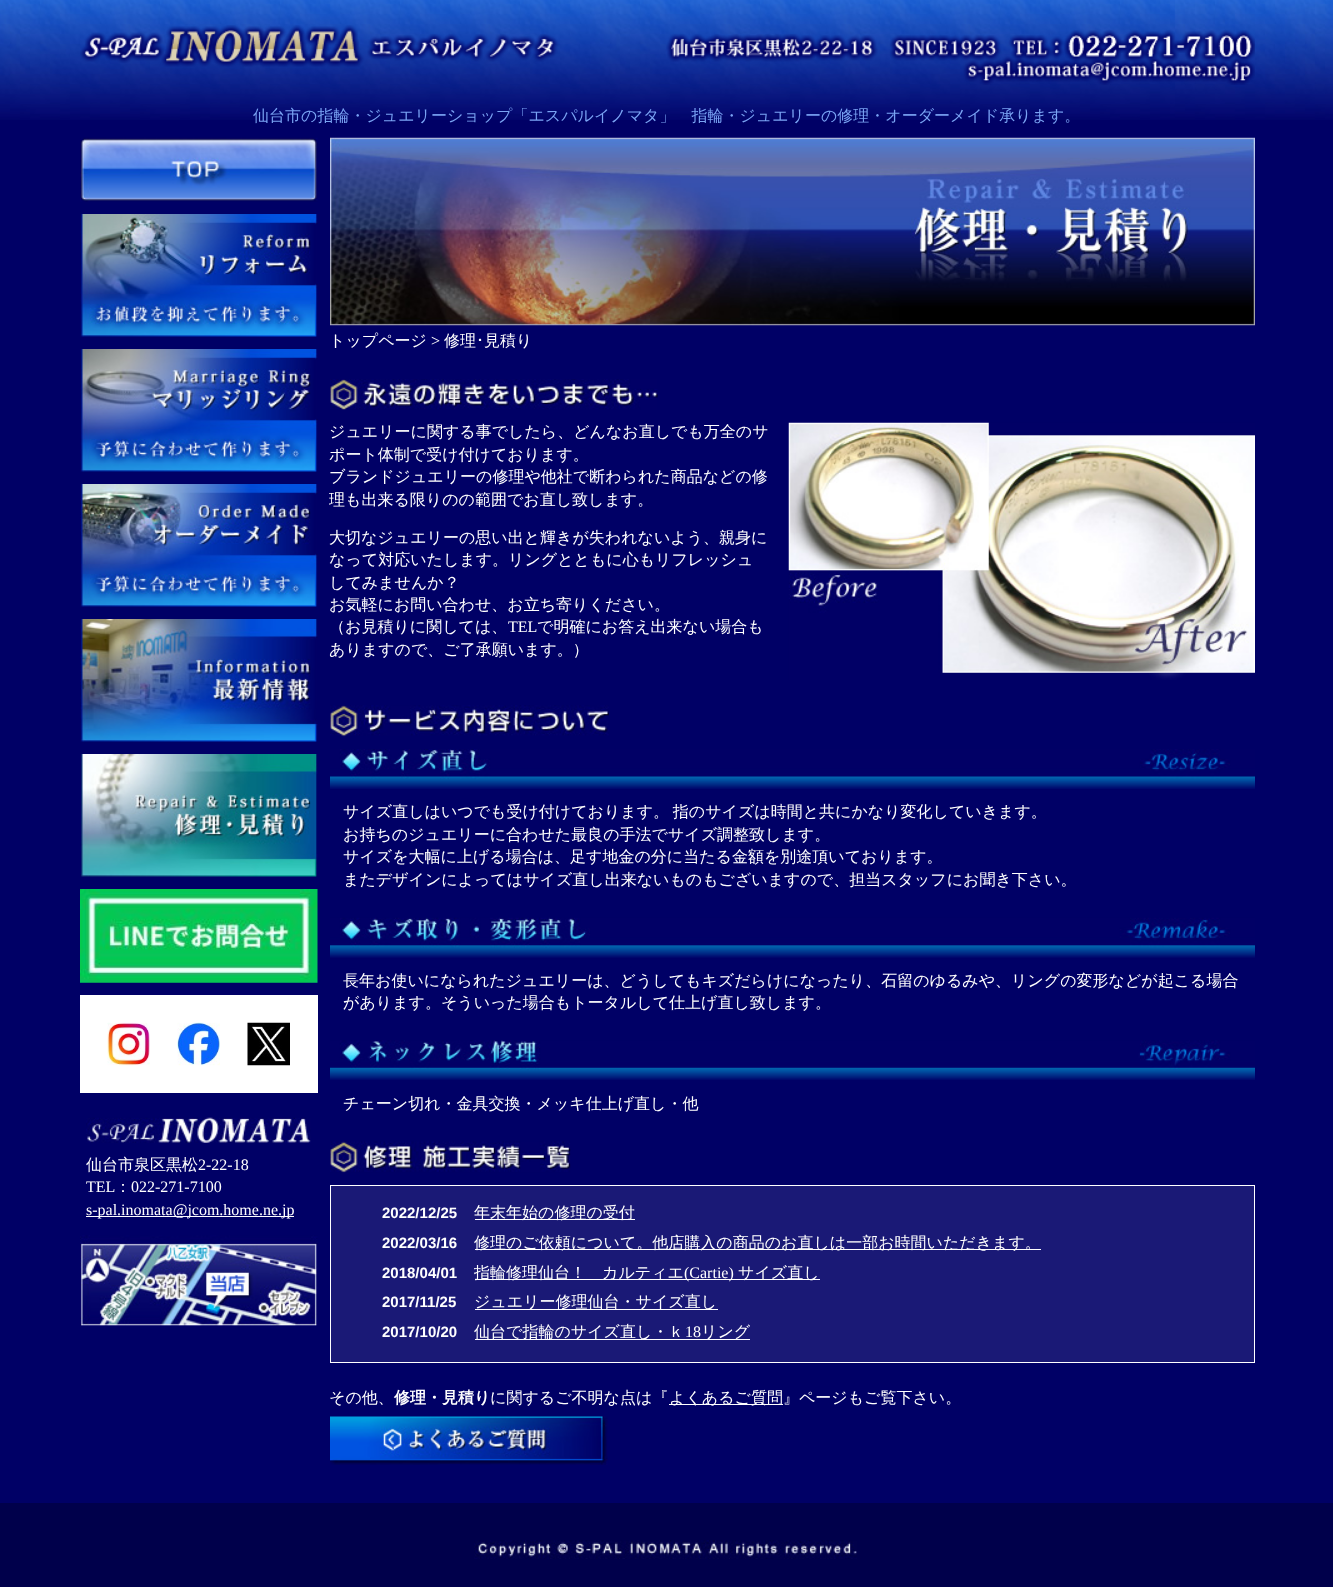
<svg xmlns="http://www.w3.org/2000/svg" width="1333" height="1587">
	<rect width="100%" height="100%" fill="#000066" />
	<image x="0" y="0" width="1333" height="120" href="assets/img1.png" />
	<image x="80" y="25" width="479" height="42" href="assets/img2.png" />
	<image x="666" y="30" width="589" height="55" href="assets/img3.png" />
	<text x="253" y="121" font-family="WenQuanYi Zen Hei" font-size="16" font-weight="500" fill="#7AA4F4">仙台市の指輪・ジュエリーショップ「エスパルイノマタ」　指輪・ジュエリーの修理・オーダーメイド承ります。</text>
	<image x="80" y="137" width="238" height="65" href="assets/img4.png" />
	<image x="80" y="214" width="238" height="123" href="assets/img5.png" />
	<image x="80" y="349" width="238" height="123" href="assets/img6.png" />
	<image x="80" y="484" width="238" height="123" href="assets/img7.png" />
	<image x="80" y="619" width="238" height="123" href="assets/img8.png" />
	<image x="80" y="754" width="238" height="123" href="assets/img9.png" />
	<image x="80" y="889" width="238" height="94" href="assets/img10.png" />
	<rect x="80" y="995" width="238" height="98" fill="#FFFFFF" />
	<image x="107" y="1022" width="43" height="44" href="assets/img11.png" />
	<image x="177" y="1022" width="43" height="44" href="assets/img12.png" />
	<image x="247" y="1022" width="43" height="44" href="assets/img13.png" />
	<image x="86" y="1117" width="225" height="26" href="assets/img14.png" />
	<text x="86" y="1170" font-family="WenQuanYi Zen Hei" font-size="16" font-weight="500" fill="#FFFFFF">仙台市泉区黒松</text>
	<g font-family="Liberation Serif" font-size="16" fill="#FFFFFF">
		<text x="198" y="1170">2-22-18</text>
		<text x="86" y="1192">TEL</text>
	</g>
	<text x="115" y="1192" font-family="WenQuanYi Zen Hei" font-size="16" font-weight="500" fill="#FFFFFF">：</text>
	<text x="131" y="1192" font-family="Liberation Serif" font-size="16" fill="#FFFFFF">022-271-7100</text>
	<rect x="86" y="1216" width="208" height="1" fill="#FFFFFF" />
	<text x="86" y="1215" font-family="Liberation Serif" font-size="16" fill="#FFFFFF">s-pal.inomata@jcom.home.ne.jp</text>
	<image x="80" y="1235" width="238" height="91" href="assets/img15.png" />
	<image x="330" y="137" width="925" height="189" href="assets/img16.png" />
	<text x="329" y="346" font-family="WenQuanYi Zen Hei" font-size="16" font-weight="500" fill="#FFFFFF">トップページ</text>
	<text x="431" y="346" font-family="Liberation Serif" font-size="16" fill="#FFFFFF">&gt;</text>
	<text x="444" y="346" font-family="WenQuanYi Zen Hei" font-size="16" font-weight="500" fill="#FFFFFF">修理</text>
	<text x="476" y="346" font-family="IPAPGothic" font-size="16" fill="#FFFFFF">･</text>
	<text x="484" y="346" font-family="WenQuanYi Zen Hei" font-size="16" font-weight="500" fill="#FFFFFF">見積り</text>
	<image x="330" y="379" width="328" height="31" href="assets/img17.png" />
	<g font-family="WenQuanYi Zen Hei" font-size="16" font-weight="500" fill="#FFFFFF">
		<text x="329" y="437">ジュエリーに関する事でしたら、どんなお直しでも万全のサ</text>
		<text x="329" y="460">ポート体制で受け付けております。</text>
	</g>
	<image x="788" y="422" width="467" height="258" href="assets/img18.png" />
	<g font-family="WenQuanYi Zen Hei" font-size="16" font-weight="500" fill="#FFFFFF">
		<text x="329" y="482">ブランドジュエリーの修理や他社で断わられた商品などの修</text>
		<text x="329" y="505">理も出来る限りのの範囲でお直し致します。</text>
		<text x="329" y="543">大切なジュエリーの思い出と輝きが失われないよう、親身に</text>
		<text x="329" y="565">なって対応いたします。リングとともに心もリフレッシュ</text>
		<text x="329" y="588">してみませんか？</text>
		<text x="329" y="610">お気軽にお問い合わせ、お立ち寄りください。</text>
		<text x="329" y="632">（お見積りに関しては、</text>
	</g>
	<text x="508" y="632" font-family="Liberation Serif" font-size="16" fill="#FFFFFF">TEL</text>
	<g font-family="WenQuanYi Zen Hei" font-size="16" font-weight="500" fill="#FFFFFF">
		<text x="537" y="632">で明確にお答え出来ない場合も</text>
		<text x="329" y="655">ありますので、ご了承願います。）</text>
	</g>
	<image x="330" y="705" width="279" height="32" href="assets/img19.png" />
	<image x="330" y="749" width="925" height="40" href="assets/img20.png" />
	<g font-family="WenQuanYi Zen Hei" font-size="16" font-weight="500" fill="#FFFFFF">
		<text x="343" y="817" word-spacing="-1">サイズ直しはいつでも受け付けております。 指のサイズは時間と共にかなり変化していきます。</text>
		<text x="343" y="840">お持ちのジュエリーに合わせた最良の手法でサイズ調整致します。</text>
		<text x="343" y="862">サイズを大幅に上げる場合は、足す地金の分に当たる金額を別途頂いております。</text>
		<text x="343" y="885">またデザインによってはサイズ直し出来ないものもございますので、担当スタッフにお聞き下さい。</text>
	</g>
	<image x="330" y="917" width="925" height="41" href="assets/img21.png" />
	<g font-family="WenQuanYi Zen Hei" font-size="16" font-weight="500" fill="#FFFFFF">
		<text x="343" y="986">長年お使いになられたジュエリーは、どうしてもキズだらけになったり、石留のゆるみや、リングの変形などが起こる場合</text>
		<text x="343" y="1008">があります。そういった場合もトータルして仕上げ直し致します。</text>
	</g>
	<image x="330" y="1040" width="925" height="40" href="assets/img22.png" />
	<text x="343" y="1109" font-family="WenQuanYi Zen Hei" font-size="16" font-weight="500" fill="#FFFFFF">チェーン切れ・金具交換・メッキ仕上げ直し・他</text>
	<image x="330" y="1141" width="241" height="32" href="assets/img23.png" />
	<rect x="330.5" y="1185.5" width="924" height="177" fill="#1A1976" stroke="#FFFFFF" />
	<text x="382" y="1218" font-family="Liberation Sans" font-size="15" font-weight="700" fill="#FFFFFF">2022/12/25</text>
	<rect x="475" y="1219" width="160" height="1" fill="#FFFFFF" />
	<text x="474" y="1218" font-family="WenQuanYi Zen Hei" font-size="16" font-weight="500" fill="#FFFFFF">年末年始の修理の受付</text>
	<text x="382" y="1248" font-family="Liberation Sans" font-size="15" font-weight="700" fill="#FFFFFF">2022/03/16</text>
	<rect x="475" y="1249" width="566" height="1" fill="#FFFFFF" />
	<text x="474" y="1248" font-family="WenQuanYi Zen Hei" font-size="16" font-weight="500" fill="#FFFFFF">修理のご依頼について。他店購入の商品のお直しは一部お時間いただきます。</text>
	<text x="382" y="1278" font-family="Liberation Sans" font-size="15" font-weight="700" fill="#FFFFFF">2018/04/01</text>
	<rect x="475" y="1279" width="345" height="1" fill="#FFFFFF" />
	<text x="474" y="1278" font-family="WenQuanYi Zen Hei" font-size="16" font-weight="500" fill="#FFFFFF">指輪修理仙台！　カルティエ</text>
	<text x="684" y="1278" font-family="Liberation Serif" font-size="16" fill="#FFFFFF">(Cartie)</text>
	<text x="738" y="1278" font-family="WenQuanYi Zen Hei" font-size="16" font-weight="500" fill="#FFFFFF">サイズ直し</text>
	<text x="382" y="1307" font-family="Liberation Sans" font-size="15" font-weight="700" fill="#FFFFFF">2017/11/25</text>
	<rect x="475" y="1309" width="243" height="1" fill="#FFFFFF" />
	<text x="474" y="1307" font-family="WenQuanYi Zen Hei" font-size="16" font-weight="500" fill="#FFFFFF">ジュエリー修理仙台・サイズ直し</text>
	<text x="382" y="1337" font-family="Liberation Sans" font-size="15" font-weight="700" fill="#FFFFFF">2017/10/20</text>
	<rect x="475" y="1339" width="275" height="1" fill="#FFFFFF" />
	<text x="474" y="1337" font-family="WenQuanYi Zen Hei" font-size="16" font-weight="500" fill="#FFFFFF">仙台で指輪のサイズ直し・ｋ</text>
	<text x="685" y="1337" font-family="Liberation Serif" font-size="16" fill="#FFFFFF">18</text>
	<g font-family="WenQuanYi Zen Hei" font-size="16" font-weight="500" fill="#FFFFFF">
		<text x="701" y="1337">リング</text>
		<text x="329" y="1403">その他、</text>
	</g>
	<text x="394" y="1403" font-family="WenQuanYi Zen Hei" font-size="16" font-weight="700" fill="#FFFFFF">修理・見積り</text>
	<text x="490" y="1403" font-family="WenQuanYi Zen Hei" font-size="16" font-weight="500" fill="#FFFFFF">に関するご不明な点は『</text>
	<rect x="669" y="1404" width="114" height="1" fill="#FFFFFF" />
	<text x="669" y="1403" font-family="WenQuanYi Zen Hei" font-size="16" font-weight="500" fill="#FFFFFF">よくあるご質問』ページもご覧下さい。</text>
	<image x="330" y="1416" width="278" height="49" href="assets/img24.png" />
	<rect x="0" y="1503" width="1333" height="84" fill="#00004B" />
	<image x="474" y="1540" width="383" height="19" href="assets/img25.png" />
</svg>
